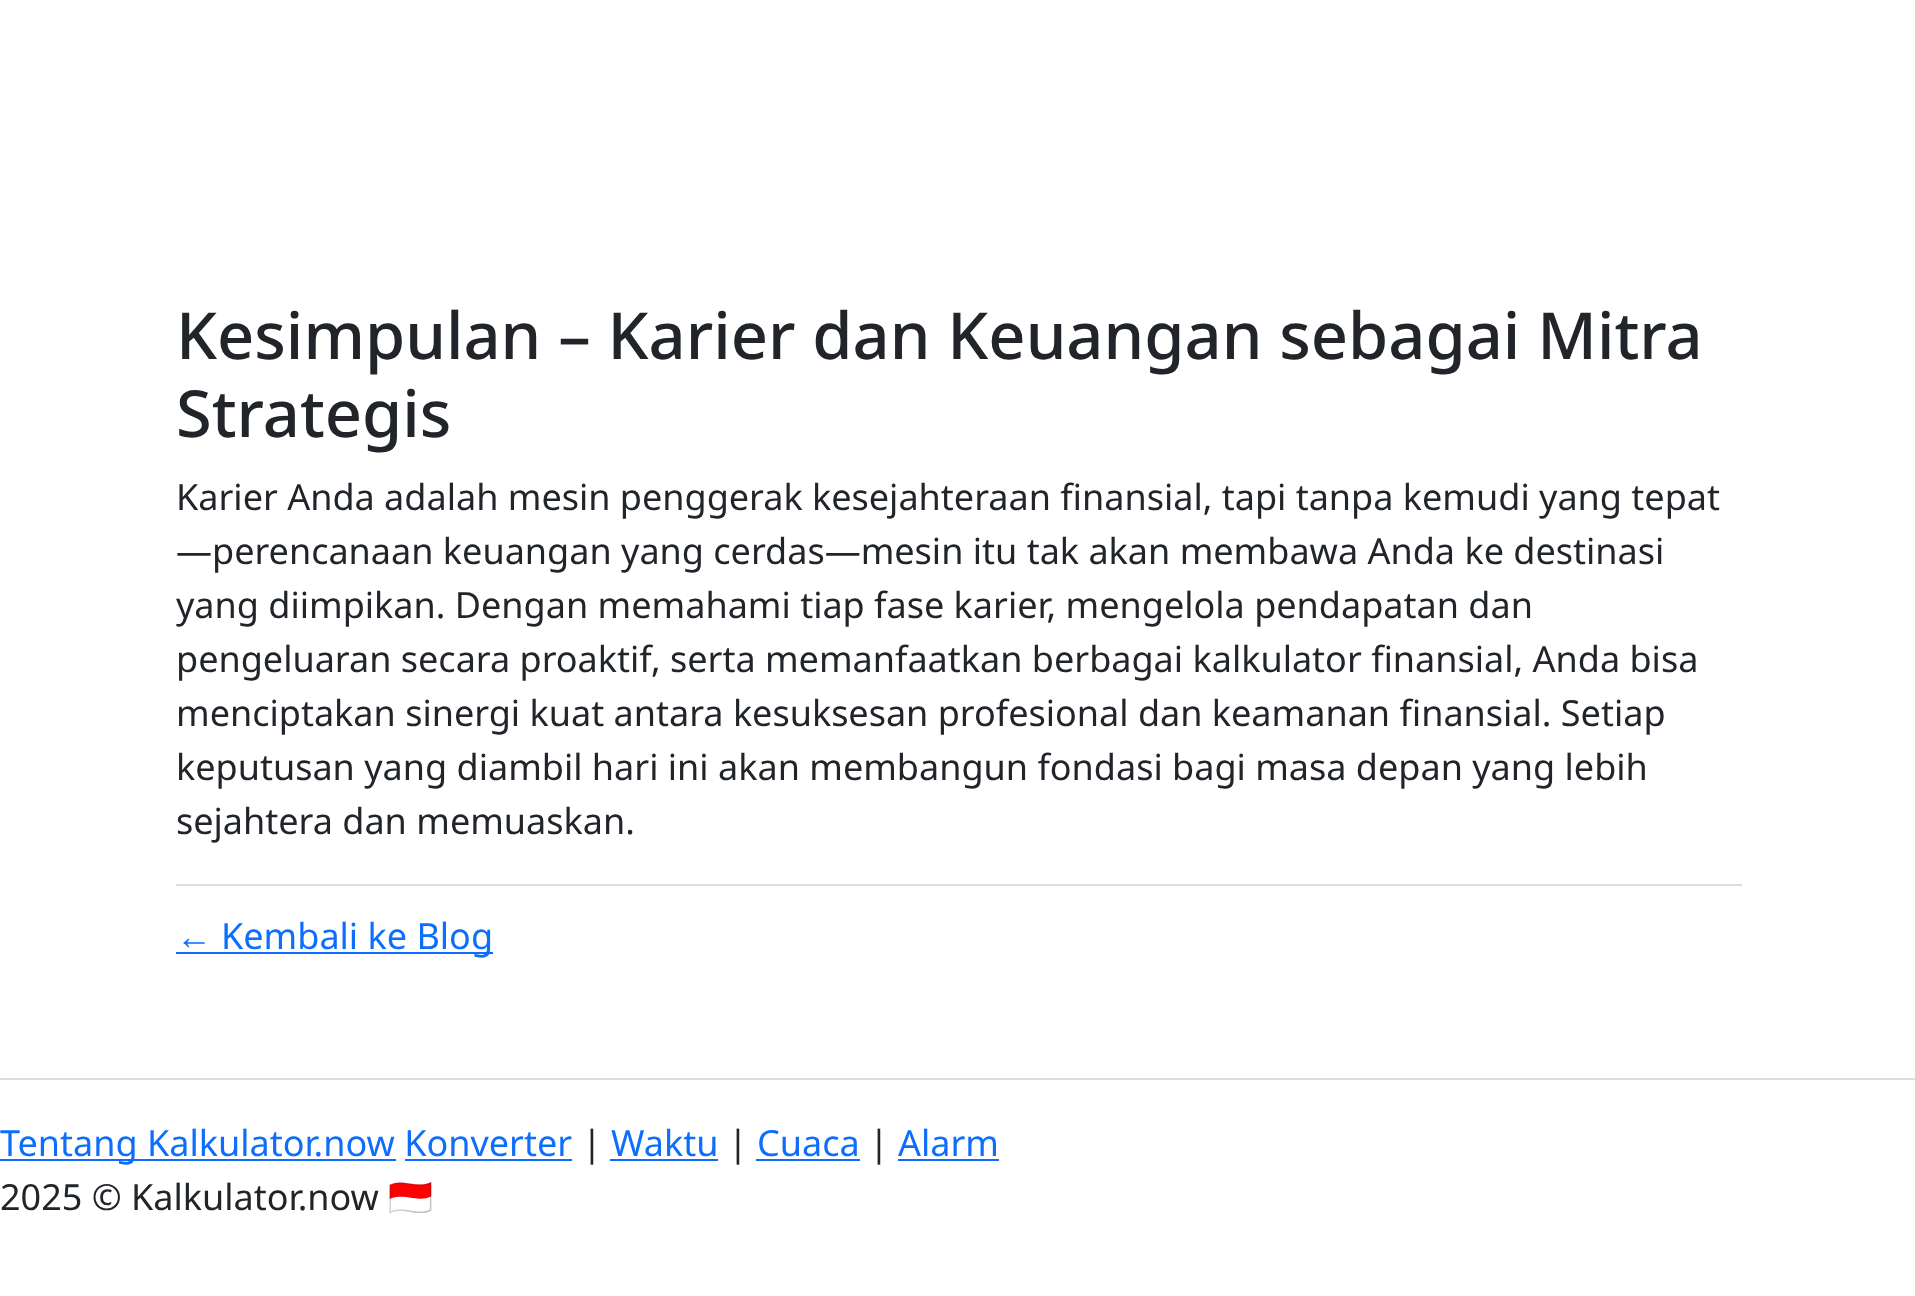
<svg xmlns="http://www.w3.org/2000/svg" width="1915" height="1296">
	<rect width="100%" height="100%" fill="#FFFFFF" />
	<g font-family="Noto Sans" font-size="64.95" font-weight="500" fill="#212529">
		<text x="176" y="359">Kesimpulan – Karier dan Keuangan sebagai Mitra</text>
		<text x="176" y="437">Strategis</text>
	</g>
	<g font-family="Noto Sans" font-size="36" fill="#212529">
		<text x="176" y="510">Karier Anda adalah mesin penggerak kesejahteraan finansial, tapi tanpa kemudi yang tepat</text>
		<text x="176" y="564">—perencanaan keuangan yang cerdas—mesin itu tak akan membawa Anda ke destinasi</text>
		<text x="176" y="618">yang diimpikan. Dengan memahami tiap fase karier, mengelola pendapatan dan</text>
		<text x="176" y="672">pengeluaran secara proaktif, serta memanfaatkan berbagai kalkulator finansial, Anda bisa</text>
		<text x="176" y="726">menciptakan sinergi kuat antara kesuksesan profesional dan keamanan finansial. Setiap</text>
		<text x="176" y="780">keputusan yang diambil hari ini akan membangun fondasi bagi masa depan yang lebih</text>
		<text x="176" y="834">sejahtera dan memuaskan.</text>
	</g>
	<rect x="176" y="884" width="1566" height="2" fill="#DDDDDD" />
	<text x="176" y="949" font-family="Liberation Sans" font-size="36" fill="#0D6EFD">←</text>
	<rect x="176" y="952" width="317" height="2" fill="#0D6EFD" />
	<text x="221" y="949" font-family="Noto Sans" font-size="36" fill="#0D6EFD">Kembali ke Blog</text>
	<rect x="0" y="1078" width="1915" height="2" fill="#DDDDDD" />
	<rect x="0" y="1159" width="396" height="2" fill="#0D6EFD" />
	<text x="0" y="1156" font-family="Noto Sans" font-size="36" fill="#0D6EFD">Tentang Kalkulator.now Konverter</text>
	<text x="582" y="1156" font-family="Noto Sans" font-size="36" fill="#212529">|</text>
	<text x="611" y="1156" font-family="Noto Sans" font-size="36" fill="#0D6EFD">Waktu</text>
	<rect x="610" y="1159" width="108" height="2" fill="#0D6EFD" />
	<text x="728" y="1156" font-family="Noto Sans" font-size="36" fill="#212529">|</text>
	<text x="757" y="1156" font-family="Noto Sans" font-size="36" fill="#0D6EFD">Cuaca</text>
	<rect x="756" y="1159" width="104" height="2" fill="#0D6EFD" />
	<text x="869" y="1156" font-family="Noto Sans" font-size="36" fill="#212529">|</text>
	<text x="898" y="1156" font-family="Noto Sans" font-size="36" fill="#0D6EFD">Alarm</text>
	<rect x="898" y="1159" width="101" height="2" fill="#0D6EFD" />
	<rect x="405" y="1159" width="167" height="2" fill="#0D6EFD" />
	<text x="0" y="1210" font-family="Noto Sans" font-size="36" fill="#212529">2025 © Kalkulator.now</text>
	<text x="388" y="1210" font-family="Noto Color Emoji" font-size="36" fill="#212529">🇮🇩</text>
</svg>
